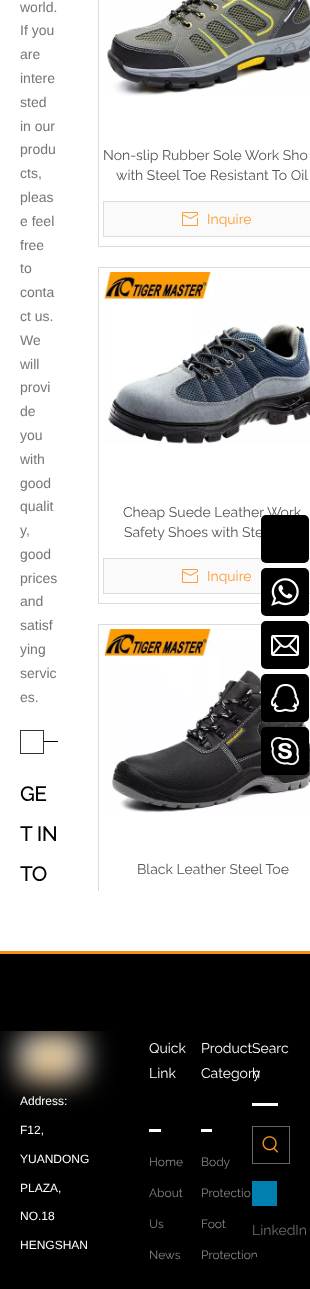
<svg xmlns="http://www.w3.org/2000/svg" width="310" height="1289">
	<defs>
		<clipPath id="clip1"><rect x="0" y="0" width="310" height="891" /></clipPath>
		<clipPath id="clip2"><rect x="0" y="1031" width="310" height="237" /></clipPath>
	</defs>
	<rect width="100%" height="100%" fill="#FFFFFF" />
	<g font-family="Liberation Sans" font-size="14" fill="#767676">
		<text x="20" y="12">world.</text>
		<text x="20" y="35">If you</text>
		<text x="20" y="59">are</text>
		<text x="20" y="83">intere</text>
		<text x="20" y="107">sted</text>
		<text x="20" y="131">in our</text>
		<text x="20" y="154">produ</text>
		<text x="20" y="178">cts,</text>
		<text x="20" y="202">pleas</text>
		<text x="20" y="226">e feel</text>
		<text x="20" y="250">free</text>
		<text x="20" y="273">to</text>
		<text x="20" y="297">conta</text>
		<text x="20" y="321">ct us.</text>
		<text x="20" y="345">We</text>
		<text x="20" y="369">will</text>
		<text x="20" y="392">provi</text>
		<text x="20" y="416">de</text>
		<text x="20" y="440">you</text>
		<text x="20" y="464">with</text>
		<text x="20" y="488">good</text>
		<text x="20" y="511">qualit</text>
		<text x="20" y="535">y,</text>
		<text x="20" y="559">good</text>
		<text x="20" y="583">prices</text>
		<text x="20" y="606">and</text>
		<text x="20" y="630">satisf</text>
		<text x="20" y="654">ying</text>
		<text x="20" y="678">servic</text>
		<text x="20" y="702">es.</text>
	</g>
	<rect x="44" y="741" width="14" height="1" fill="#000000" />
	<rect x="20.5" y="730.5" width="23" height="23" fill="none" stroke="#333333" />
	<g font-family="Raleway" font-size="20" font-weight="700" fill="#000000">
		<text x="20" y="801">GE</text>
		<text x="20" y="841">T IN</text>
		<text x="20" y="881">TO</text>
	</g>
	<rect x="98.5" y="-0.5" width="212" height="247" fill="none" stroke="#DCDCDC" />
	<image x="107" y="0" width="203" height="96" href="assets/img1.png" />
	<g font-family="Raleway" font-size="14" font-weight="100" fill="#545454">
		<text x="103" y="160">Non-slip Rubber Sole Work Sho</text>
		<text x="116" y="180">with Steel Toe Resistant To Oil</text>
	</g>
	<rect x="103.5" y="201.5" width="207" height="35" fill="#FAFAFA" stroke="#DCDCDC" />
	<image x="182" y="212" width="16" height="14" href="assets/img2.png" />
	<text x="207" y="224" font-family="Raleway" font-size="14" font-weight="100" fill="#FD9D39">Inquire</text>
	<rect x="98.5" y="267.5" width="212" height="336" fill="none" stroke="#DCDCDC" />
	<image x="103" y="272" width="207" height="172" href="assets/img3.png" />
	<g font-family="Raleway" font-size="14" font-weight="100" fill="#545454">
		<text x="123" y="517">Cheap Suede Leather Work</text>
		<text x="124" y="537">Safety Shoes with Ste</text>
	</g>
	<rect x="103.5" y="558.5" width="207" height="35" fill="#FAFAFA" stroke="#DCDCDC" />
	<image x="182" y="569" width="16" height="14" href="assets/img2.png" />
	<text x="207" y="581" font-family="Raleway" font-size="14" font-weight="100" fill="#FD9D39">Inquire</text>
	<g clip-path="url(#clip1)">
		<rect x="98.5" y="624.5" width="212" height="336" fill="none" stroke="#DCDCDC" />
	</g>
	<image x="103" y="629" width="207" height="184" href="assets/img4.png" />
	<text x="137" y="874" font-family="Raleway" font-size="14" font-weight="100" fill="#545454">Black Leather Steel Toe</text>
	<rect x="0" y="954" width="310" height="335" fill="#000000" />
	<rect x="0" y="951" width="310" height="3" fill="#F19213" />
	<rect x="261" y="515" width="48" height="48" rx="5" fill="#000000" />
	<rect x="261" y="568" width="48" height="48" rx="5" fill="#000000" />
	<image x="271" y="578" width="28" height="28" href="assets/img5.png" />
	<rect x="261" y="621" width="48" height="48" rx="5" fill="#000000" />
	<image x="271" y="635" width="28" height="21" href="assets/img6.png" />
	<rect x="261" y="674" width="48" height="48" rx="5" fill="#000000" />
	<image x="271" y="684" width="28" height="28" href="assets/img7.png" />
	<rect x="261" y="727" width="48" height="48" rx="5" fill="#000000" />
	<image x="271" y="737" width="28" height="28" href="assets/img8.png" />
	<g clip-path="url(#clip2)">
		<rect x="20" y="1036" width="63" height="41" fill="#F0F1F2" filter="blur(15px)" />
	</g>
	<text x="20" y="1105" font-family="Liberation Sans" font-size="12" fill="#FFFFFF">Address:</text>
	<image x="8" y="1031" width="86" height="69" href="assets/img9.png" />
	<g font-family="Liberation Sans" font-size="12" fill="#FFFFFF">
		<text x="20" y="1134">F12,</text>
		<text x="20" y="1163">YUANDONG</text>
		<text x="20" y="1192">PLAZA,</text>
		<text x="20" y="1220">NO.18</text>
		<text x="20" y="1249">HENGSHAN</text>
	</g>
	<rect x="149" y="1129" width="12" height="3" fill="#FFFFFF" />
	<g font-family="Raleway" font-size="14" font-weight="100" fill="#FFFFFF">
		<text x="149" y="1053">Quick</text>
		<text x="149" y="1078">Link</text>
	</g>
	<g font-family="Raleway" font-size="12" font-weight="100" fill="#858585">
		<text x="149" y="1166">Home</text>
		<text x="149" y="1197">About</text>
		<text x="149" y="1228">Us</text>
		<text x="149" y="1259">News</text>
	</g>
	<rect x="201" y="1129" width="11" height="3" fill="#FFFFFF" />
	<g font-family="Raleway" font-size="14" font-weight="100" fill="#FFFFFF">
		<text x="201" y="1053">Product</text>
		<text x="201" y="1078">Category</text>
	</g>
	<g font-family="Raleway" font-size="12" font-weight="100" fill="#858585">
		<text x="201" y="1166">Body</text>
		<text x="201" y="1197">Protectio</text>
		<text x="201" y="1228">Foot</text>
		<text x="201" y="1259">Protection</text>
	</g>
	<rect x="252" y="1103" width="26" height="3" fill="#FFFFFF" />
	<g font-family="Raleway" font-size="14" font-weight="100" fill="#FFFFFF">
		<text x="252" y="1053">Searc</text>
		<text x="252" y="1078">h</text>
	</g>
	<rect x="252.5" y="1126.5" width="37" height="37" fill="none" stroke="#666666" />
	<image x="262" y="1136" width="17" height="17" href="assets/img10.png" />
	<rect x="252" y="1181" width="25" height="25" fill="#007FB1" />
	<text x="252" y="1235" font-family="Raleway" font-size="14" font-weight="100" fill="#6D6D6D">LinkedIn</text>
	<rect x="252" y="1257" width="5" height="2" fill="#000000" />
</svg>
